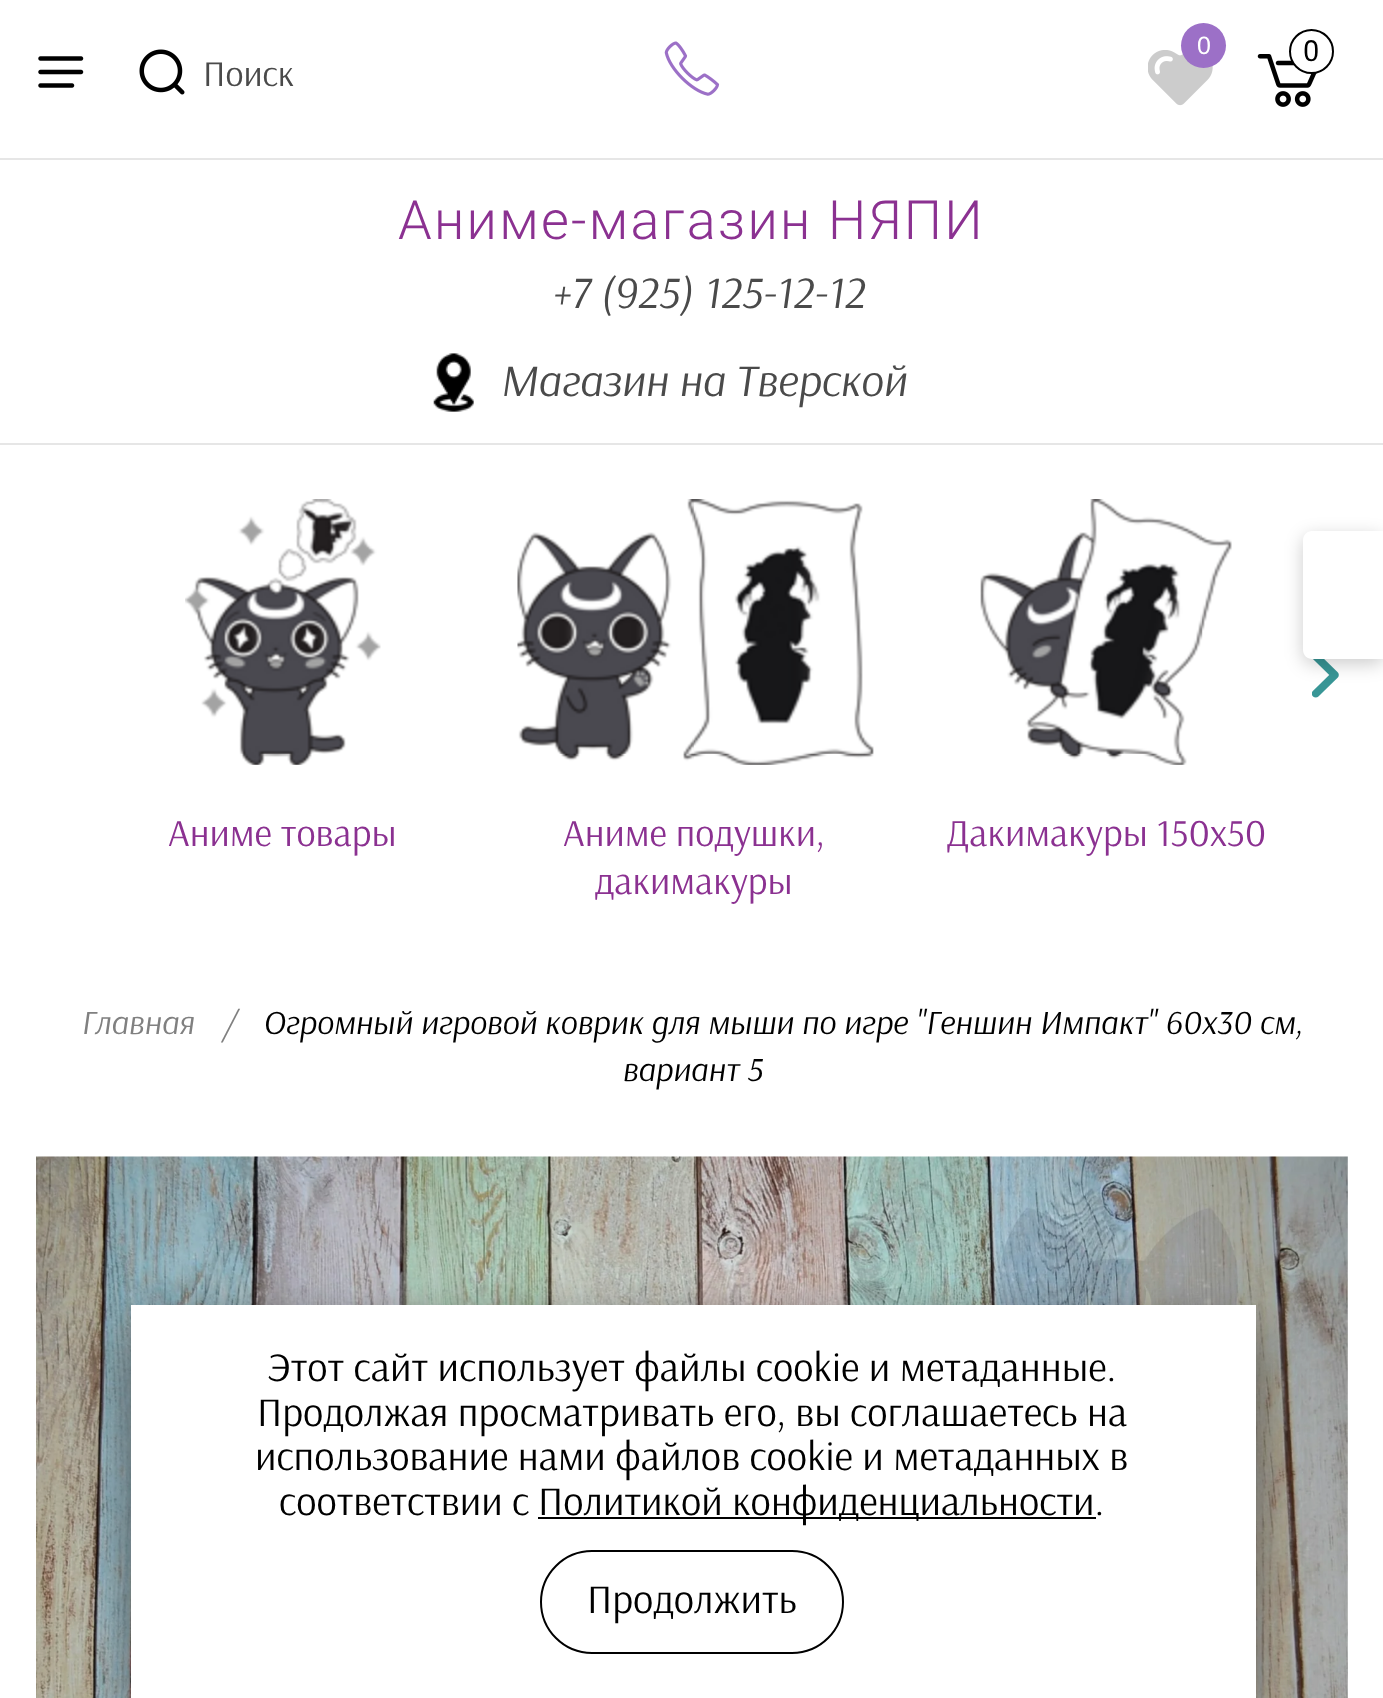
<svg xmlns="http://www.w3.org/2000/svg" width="1383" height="1698">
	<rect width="100%" height="100%" fill="#FFFFFF" />
	<rect x="0" y="443" width="1383" height="2" fill="#E6E6E6" />
	<rect x="0" y="158" width="1383" height="2" fill="#E6E6E6" />
	<image x="38" y="56" width="46" height="32" href="assets/img1.png" />
	<image x="139" y="49" width="46" height="46" href="assets/img2.png" />
	<text x="203" y="86" font-family="Arsenal" font-size="36" fill="#4A4A4A">Поиск</text>
	<image x="664" y="41" width="56" height="55" href="assets/img3.png" />
	<image x="1148" y="50" width="65" height="56" href="assets/img4.png" />
	<circle cx="1203.5" cy="45.5" r="22.5" fill="#9C70C7" />
	<text x="1197" y="54" font-family="Liberation Sans" font-size="25" fill="#FFFFFF">0</text>
	<image x="1257" y="54" width="60" height="53" href="assets/img5.png" />
	<circle cx="1311.5" cy="51.5" r="21.5" fill="#FFFFFF" stroke="#000000" stroke-width="2" />
	<text x="1303" y="61" font-family="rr" font-size="29" fill="#000000">0</text>
	<text x="398" y="239" font-family="Roboto" font-size="54" font-weight="300" letter-spacing="2.25" fill="#8B3191">Аниме-магазин НЯПИ</text>
	<text x="552" y="308" font-family="Arsenal" font-size="45" font-style="italic" fill="#4A4A4A">+7 (925) 125-12-12</text>
	<image x="433" y="353" width="41" height="59" href="assets/img6.png" />
	<text x="500" y="396" font-family="Arsenal" font-size="45" font-style="italic" fill="#4A4A4A">Магазин на Тверской</text>
	<image x="1312" y="659" width="27" height="39" href="assets/img7.png" />
	<image x="185" y="499" width="196" height="266" href="assets/img8.png" />
	<text x="168" y="846" font-family="Arsenal" font-size="38.25" fill="#8B3191">Аниме товары</text>
	<image x="517" y="499" width="357" height="266" href="assets/img9.png" />
	<g font-family="Arsenal" font-size="38.25" fill="#8B3191">
		<text x="563" y="846">Аниме подушки,</text>
		<text x="595" y="894">дакимакуры</text>
	</g>
	<image x="980" y="499" width="252" height="266" href="assets/img10.png" />
	<text x="946" y="846" font-family="Arsenal" font-size="38.25" fill="#8B3191">Дакимакуры 150х50</text>
	<g font-family="Arsenal" font-size="33.75" font-style="italic" fill="#808080">
		<text x="81" y="1034">Главная</text>
		<text x="222" y="1034">/</text>
	</g>
	<g font-family="Arsenal" font-size="33.75" font-style="italic" fill="#000000">
		<text x="263" y="1034">Огромный игровой коврик для мыши по игре "Геншин Импакт" 60х30 см,</text>
		<text x="622" y="1081">вариант 5</text>
	</g>
	<image x="36" y="1156" width="1312" height="542" href="assets/img11.png" />
	<rect x="1303" y="536" width="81" height="128" rx="9" fill="#000000" fill-opacity="0.2" filter="blur(9px)" />
	<path d="M1312 531H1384V659H1312C1307 659 1303 655 1303 650V540C1303 535 1307 531 1312 531Z" fill="#FFFFFF" />
	<rect x="131" y="1328" width="1125" height="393" fill="#4A4A4A" filter="blur(28px)" />
	<rect x="131" y="1305" width="1125" height="393" fill="#FFFFFF" />
	<g font-family="Arsenal" font-size="40.5" fill="#000000">
		<text x="268" y="1381">Этот сайт использует файлы cookie и метаданные.</text>
		<text x="257" y="1426">Продолжая просматривать его, вы соглашаетесь на</text>
		<text x="255" y="1470">использование нами файлов cookie и метаданных в</text>
		<text x="279" y="1515">соответствии с</text>
	</g>
	<rect x="538" y="1517" width="558" height="2" fill="#000000" />
	<text x="538" y="1515" font-family="Arsenal" font-size="40.5" fill="#000000">Политикой конфиденциальности.</text>
	<rect x="541" y="1551" width="302" height="102" rx="51" fill="none" stroke="#000000" stroke-width="2" />
	<text x="587" y="1613" font-family="Arsenal" font-size="40.5" fill="#000000">Продолжить</text>
</svg>
